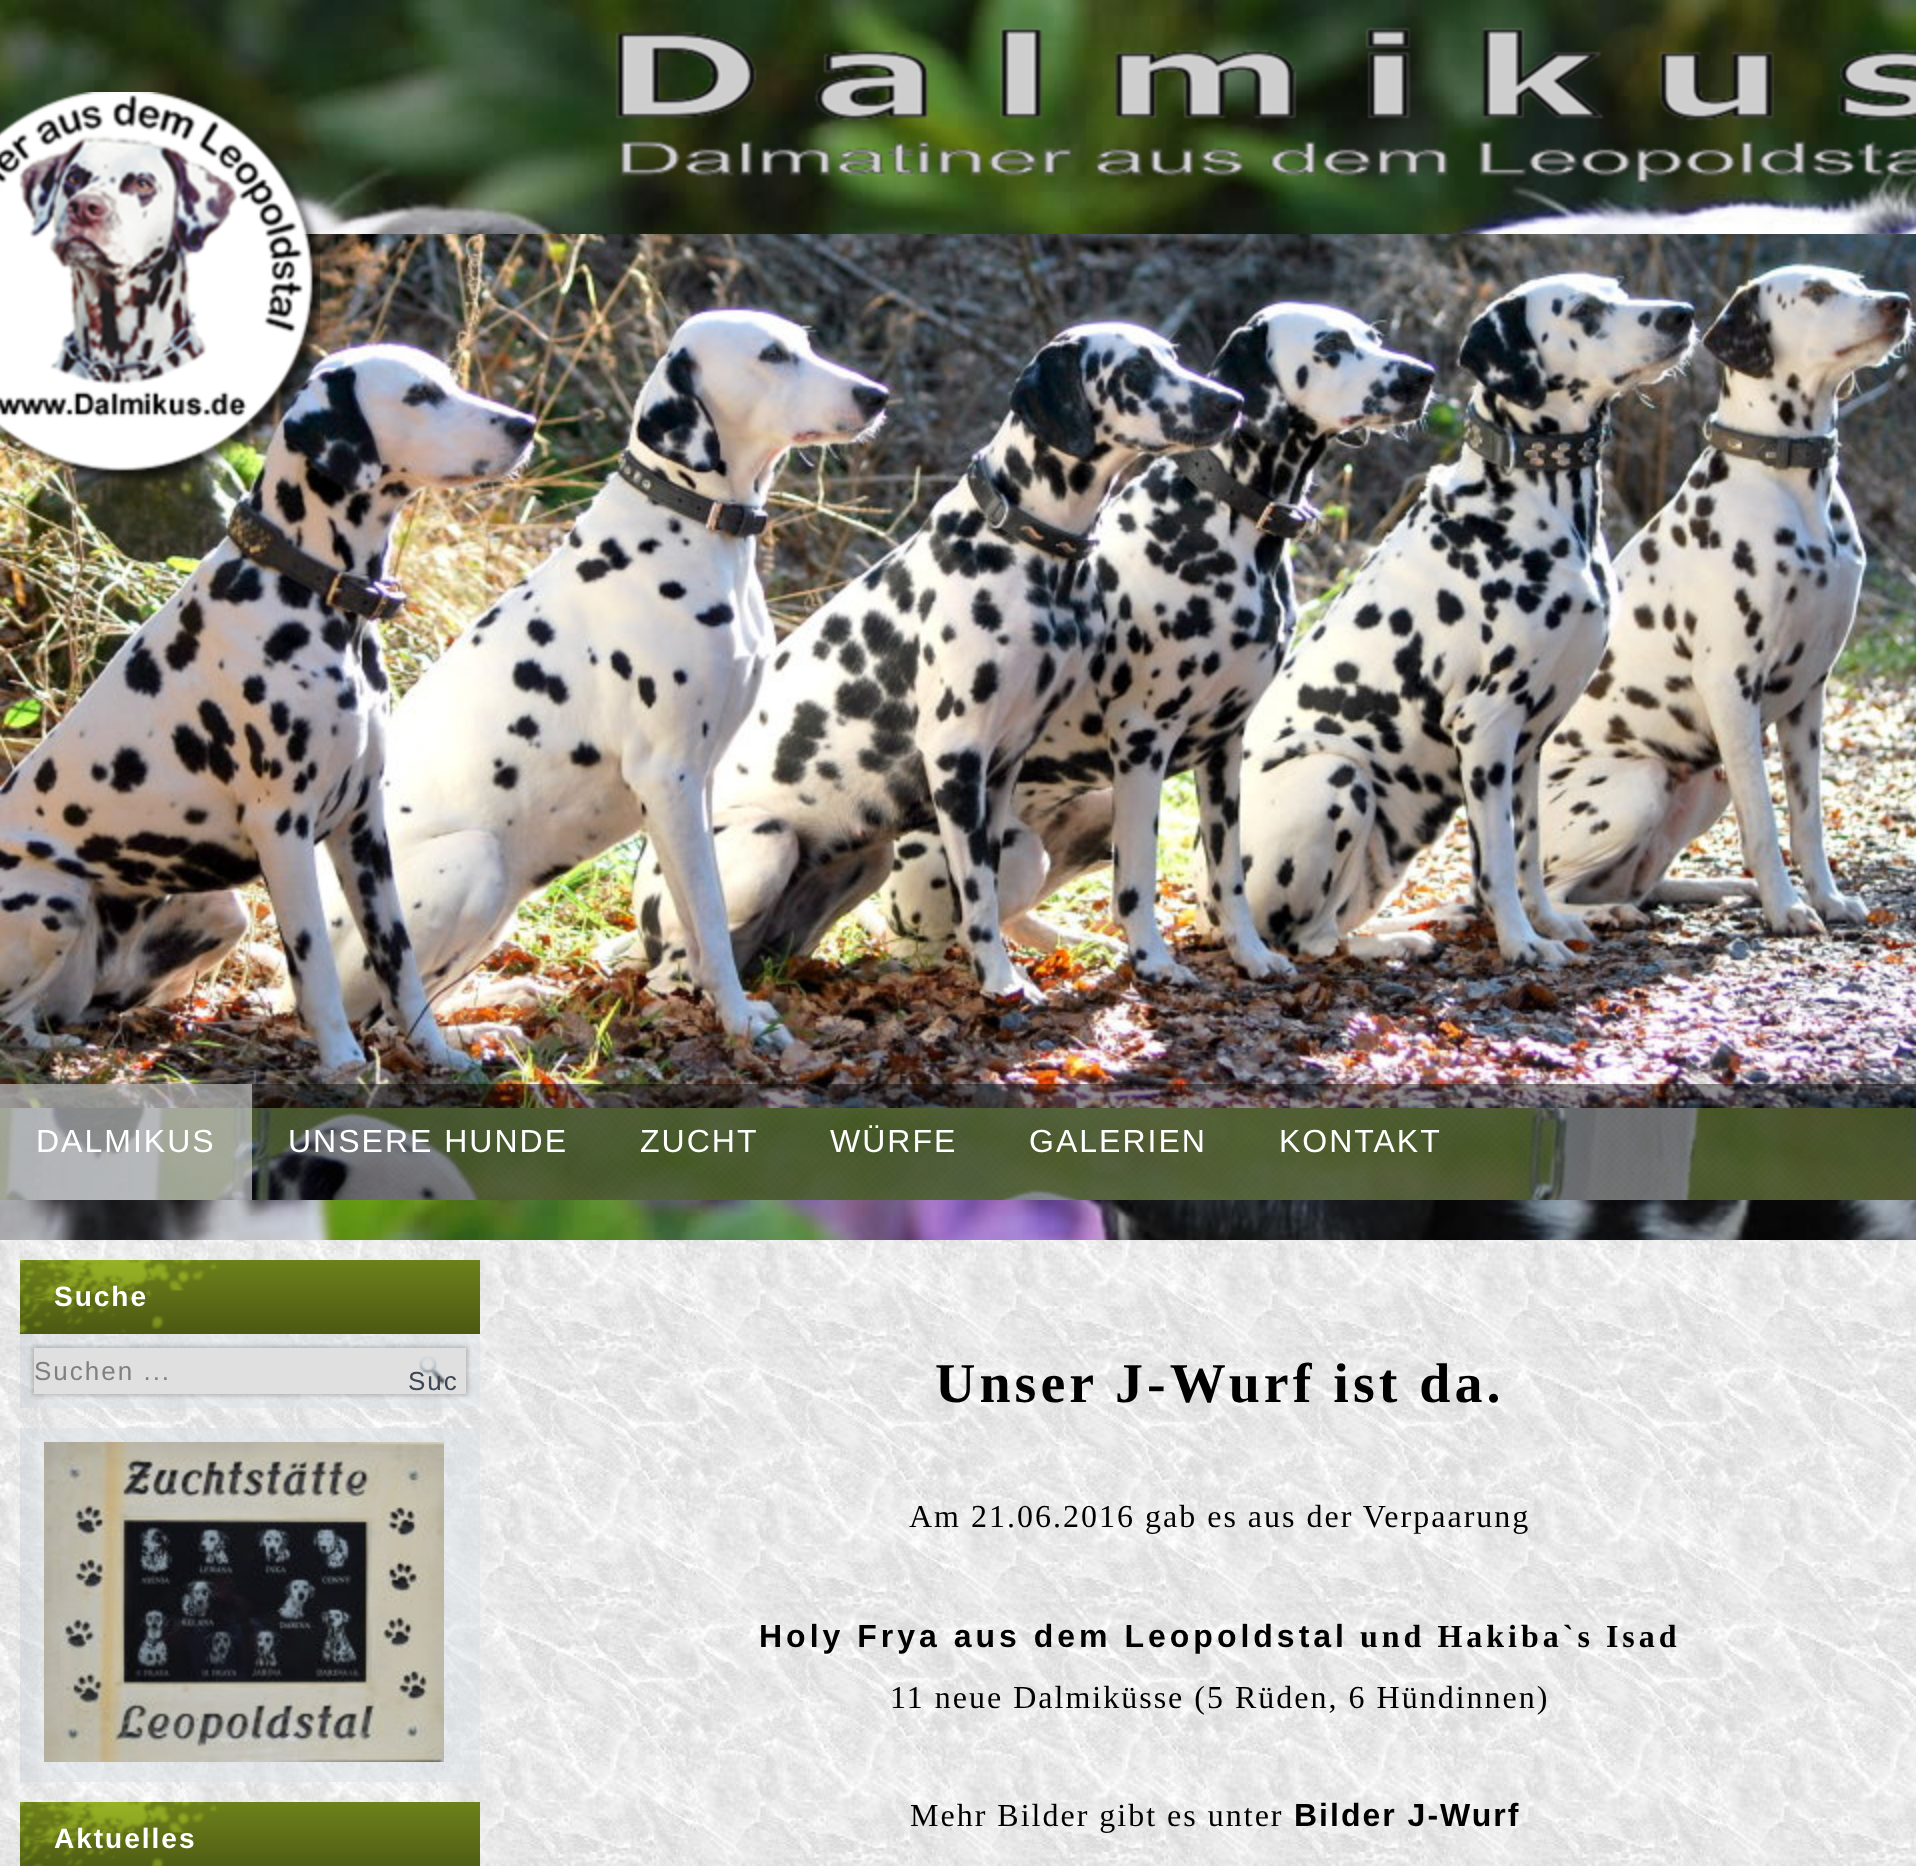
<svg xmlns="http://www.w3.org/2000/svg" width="1916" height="1866">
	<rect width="100%" height="100%" fill="#FFFFFF" />
	<image x="0" y="0" width="1916" height="1240" href="assets/img1.png" />
	<image x="0" y="234" width="1916" height="874" href="assets/img4.png" />
	<image x="0" y="92" width="320" height="392" href="assets/img2.png" />
	<image x="615" y="27" width="1301" height="158" href="assets/img3.png" />
	<image x="0" y="1108" width="1916" height="92" href="assets/img5.png" />
	<rect x="0" y="1084" width="1916" height="116" fill="#000000" fill-opacity="0.4" />
	<image x="0" y="1084" width="1916" height="116" href="assets/img6.png" />
	<rect x="0" y="1084" width="252" height="116" fill="#E0E0E0" fill-opacity="0.6" />
	<g font-family="Liberation Sans" font-size="32" letter-spacing="2" fill="#FFFFFF">
		<text x="36" y="1152">DALMIKUS</text>
		<text x="288" y="1152">UNSERE HUNDE</text>
		<text x="640" y="1152">ZUCHT</text>
		<text x="830" y="1152">WÜRFE</text>
		<text x="1029" y="1152">GALERIEN</text>
		<text x="1279" y="1152">KONTAKT</text>
	</g>
	<image x="0" y="1240" width="1916" height="626" href="assets/img7.png" />
	<image x="20" y="1260" width="460" height="74" href="assets/img8.png" />
	<text x="54" y="1306" font-family="Liberation Sans" font-size="28" font-weight="700" letter-spacing="2" fill="#FFFFFF">Suche</text>
	<rect x="32" y="1346" width="436" height="50" fill="#000000" fill-opacity="0.2" filter="blur(2px)" />
	<rect x="34" y="1348" width="432" height="46" fill="#E0E0E0" />
	<text x="34" y="1380" font-family="Liberation Sans" font-size="26" letter-spacing="2" fill="#808080">Suchen ...</text>
	<image x="419" y="1356" width="27" height="29" href="assets/img9.png" />
	<text x="408" y="1390" font-family="Liberation Sans" font-size="26" letter-spacing="2" fill="#3D4852">Suc</text>
	<image x="44" y="1442" width="400" height="320" href="assets/img10.png" />
	<image x="20" y="1802" width="460" height="64" href="assets/img11.png" />
	<text x="54" y="1848" font-family="Liberation Sans" font-size="28" font-weight="700" letter-spacing="2" fill="#FFFFFF">Aktuelles</text>
	<text x="935" y="1402" font-family="Liberation Serif" font-size="56" font-weight="700" letter-spacing="4" fill="#000000">Unser J-Wurf ist da.</text>
	<text x="909" y="1527" font-family="Liberation Serif" font-size="32" letter-spacing="2" fill="#000000">Am 21.06.2016 gab es aus der Verpaarung</text>
	<text x="759" y="1647" font-family="Liberation Sans" font-size="32" font-weight="700" letter-spacing="4" fill="#000000">Holy Frya aus dem Leopoldstal</text>
	<text x="1360" y="1647" font-family="Liberation Serif" font-size="32" font-weight="700" letter-spacing="4" fill="#000000">und Hakiba`s Isad</text>
	<g font-family="Liberation Serif" font-size="32" letter-spacing="2" fill="#000000">
		<text x="890" y="1708">11 neue Dalmiküsse (5 Rüden, 6 Hündinnen)</text>
		<text x="910" y="1826">Mehr Bilder gibt es unter</text>
	</g>
	<text x="1294" y="1826" font-family="Liberation Sans" font-size="32" font-weight="700" letter-spacing="2" fill="#000000">Bilder J-Wurf</text>
</svg>
